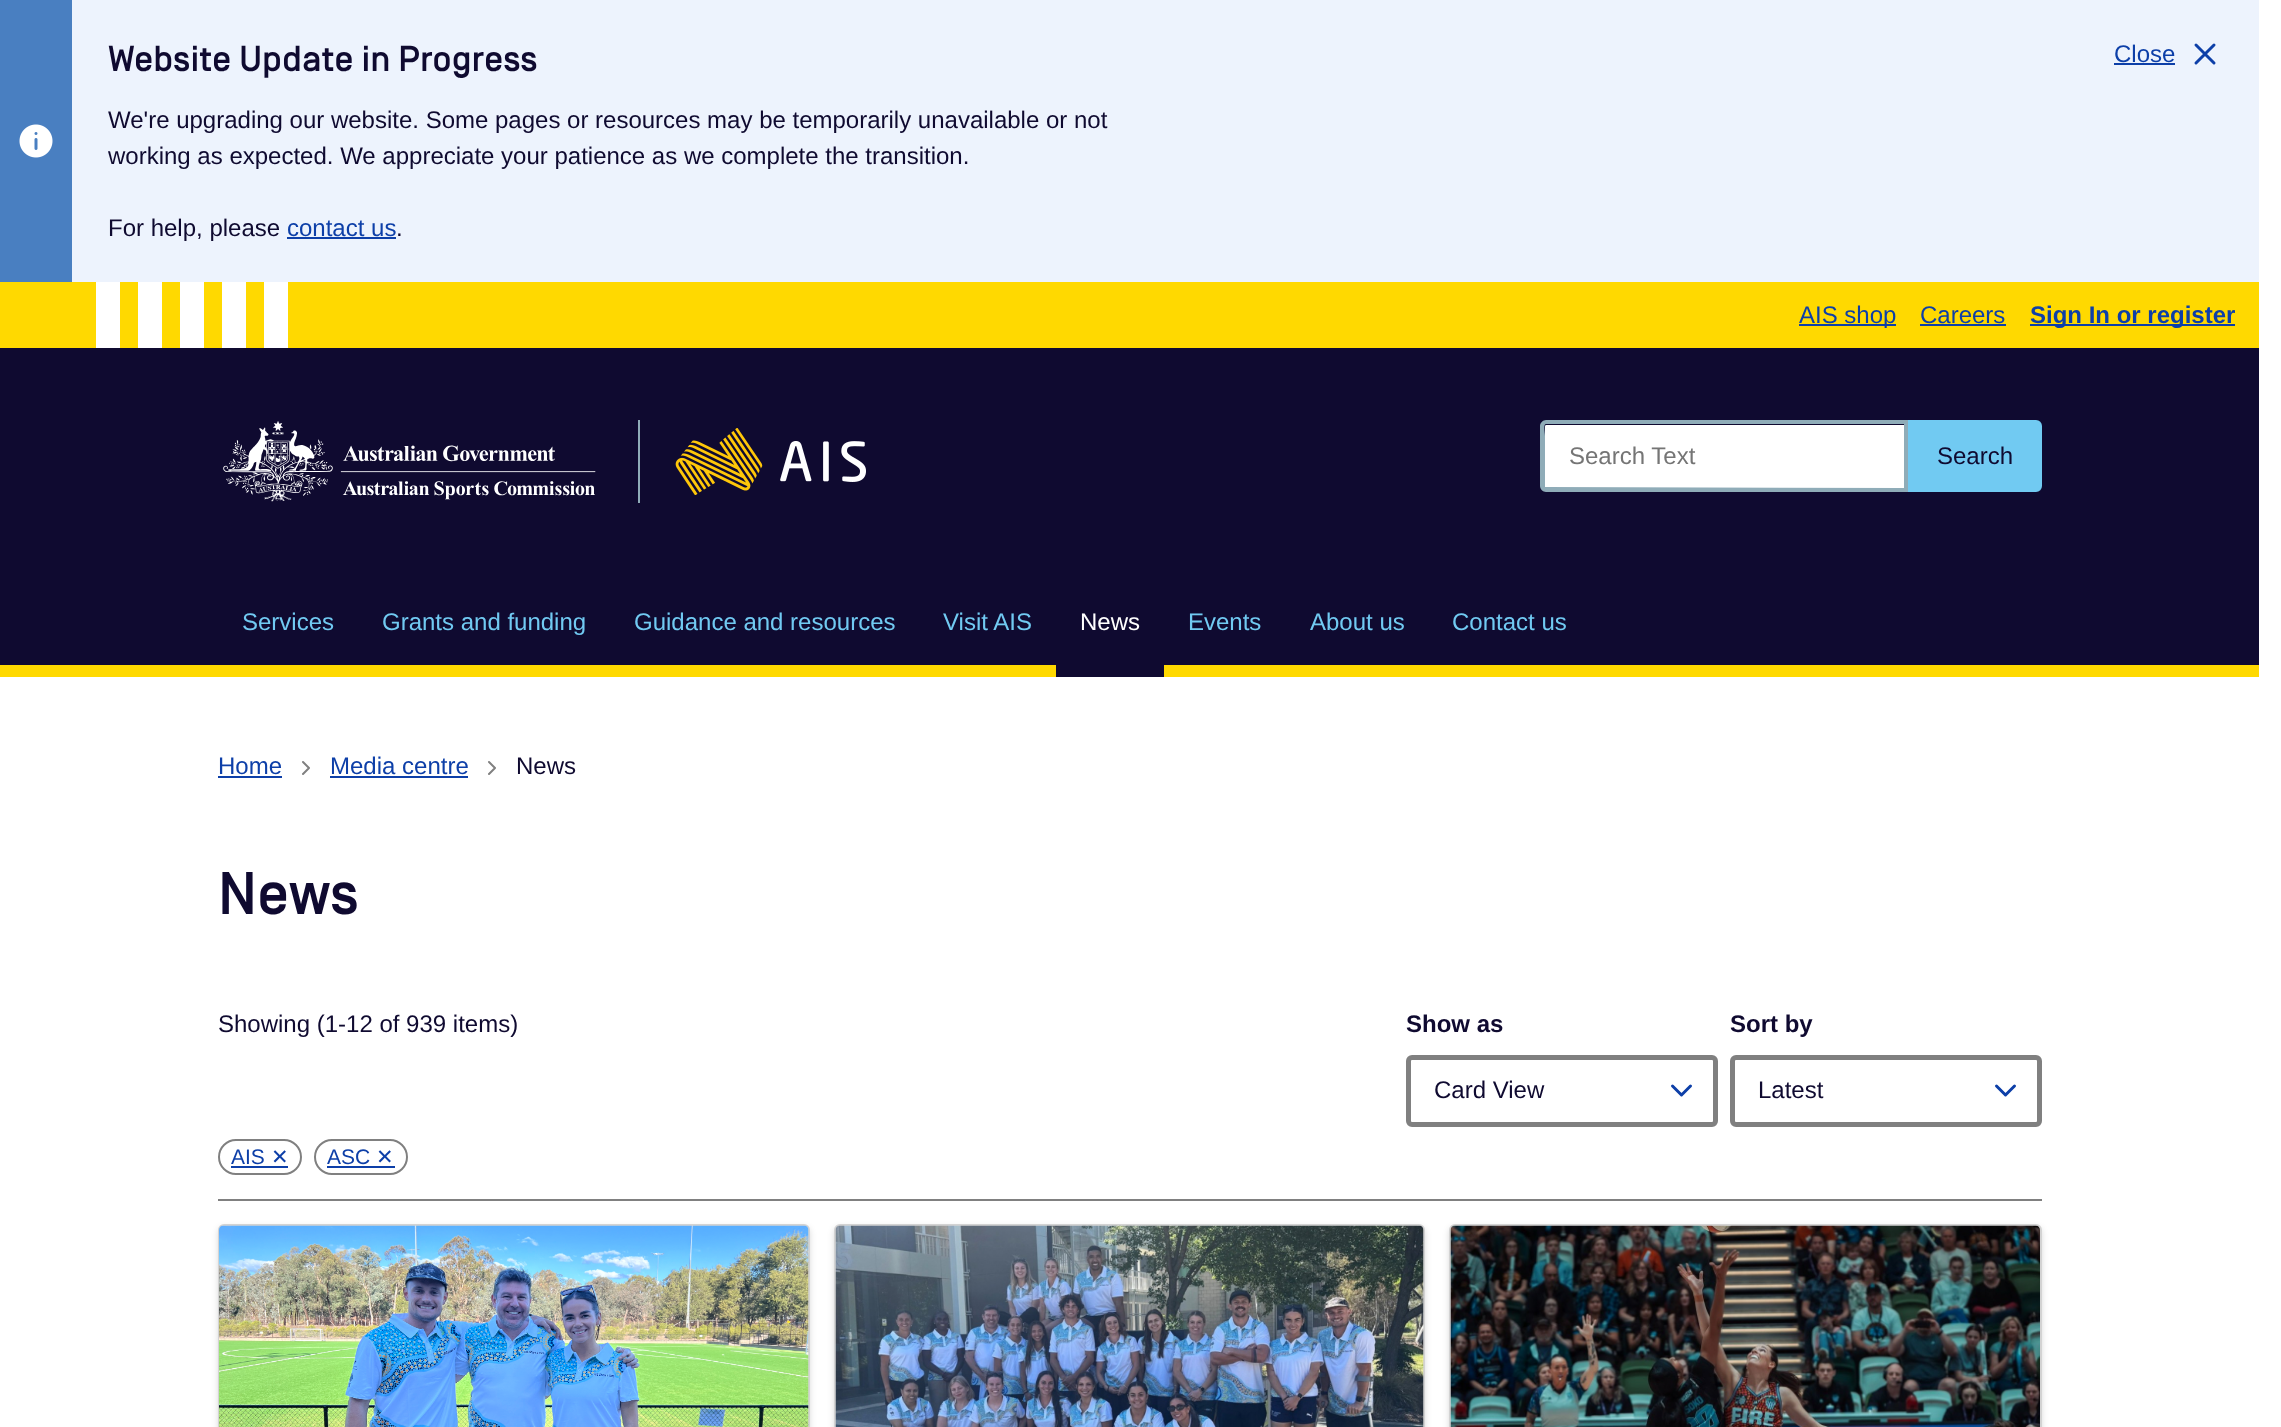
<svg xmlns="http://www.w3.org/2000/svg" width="2281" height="1427">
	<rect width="100%" height="100%" fill="#FFFFFF" />
	<rect x="72" y="0" width="2187" height="282" fill="#EDF3FD" />
	<rect x="0" y="0" width="72" height="282" fill="#497FC1" />
	<image x="19" y="124" width="34" height="34" href="assets/img1.png" />
	<text x="108" y="71" font-family="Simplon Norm" font-size="36" font-weight="500" fill="#0F0A30">Website Update in Progress</text>
	<g font-family="Liberation Sans" font-size="24" fill="#0F0A30">
		<text x="108" y="128">We're upgrading our website. Some pages or resources may be temporarily unavailable or not</text>
		<text x="108" y="164">working as expected. We appreciate your patience as we complete the transition.</text>
		<text x="108" y="236">For help, please</text>
	</g>
	<text x="287" y="236" font-family="Liberation Sans" font-size="24" fill="#0D3FA8">contact us</text>
	<rect x="287" y="237" width="109" height="2" fill="#0D3FA8" />
	<text x="396" y="236" font-family="Liberation Sans" font-size="24" fill="#0F0A30">.</text>
	<text x="2114" y="62" font-family="Liberation Sans" font-size="24" fill="#0D3FA8">Close</text>
	<rect x="2114" y="63" width="61" height="2" fill="#0D3FA8" />
	<path d="M2214 45L2196 63M2196 45L2214 63" fill="none" stroke="#0D3FA8" stroke-width="3" stroke-linecap="round" stroke-linejoin="round" />
	<rect x="0" y="282" width="2259" height="66" fill="#FFD900" />
	<rect x="96" y="282" width="24" height="66" fill="#FFFFFF" />
	<rect x="138" y="282" width="24" height="66" fill="#FFFFFF" />
	<rect x="180" y="282" width="24" height="66" fill="#FFFFFF" />
	<rect x="222" y="282" width="24" height="66" fill="#FFFFFF" />
	<rect x="264" y="282" width="24" height="66" fill="#FFFFFF" />
	<rect x="1799" y="324" width="97" height="2" fill="#0D3FA8" />
	<g font-family="Liberation Sans" font-size="24" fill="#0D3FA8">
		<text x="1799" y="323">AIS shop</text>
		<text x="1920" y="323">Careers</text>
	</g>
	<rect x="1920" y="324" width="86" height="2" fill="#0D3FA8" />
	<rect x="2030" y="324" width="205" height="2" fill="#0D3FA8" />
	<text x="2030" y="323" font-family="Liberation Sans" font-size="24" font-weight="700" fill="#0D3FA8">Sign In or register</text>
	<rect x="0" y="348" width="2259" height="317" fill="#0F0A30" />
	<image x="223" y="421" width="373" height="81" href="assets/img2.png" />
	<rect x="638" y="420" width="2" height="83" fill="#8FACB8" />
	<image x="675" y="428" width="191" height="67" href="assets/img3.png" />
	<path d="M1546.5 425H1904V488H1546.5C1545.5 488 1545 487.5 1545 486.5V426.5C1545 425.5 1545.5 425 1546.5 425Z" fill="#FFFFFF" />
	<path d="M1546 420H1904V492H1546C1543 492 1540 489 1540 486V426C1540 423 1543 420 1546 420ZM1546 424H1904V488L1546 487H1545V436C1545 433 1543 424 1546 424Z" fill="#8FACB8" fill-rule="evenodd" />
	<text x="1569" y="464" font-family="Liberation Sans" font-size="24" fill="#757575">Search Text</text>
	<rect x="1904" y="420" width="4" height="72" fill="#8FACB8" />
	<path d="M1910.5 422.5H2036C2038 422.5 2039.5 424 2039.5 426V486C2039.5 488 2038 489.5 2036 489.5H1910.5Z" fill="#71CAF2" stroke="#71CAF2" stroke-width="5" />
	<text x="1937" y="464" font-family="Liberation Sans" font-size="24" fill="#0F0A30">Search</text>
	<g font-family="Liberation Sans" font-size="24" fill="#71CAF2">
		<text x="242" y="630">Services</text>
		<text x="382" y="630">Grants and funding</text>
		<text x="634" y="630">Guidance and resources</text>
		<text x="943" y="630">Visit AIS</text>
	</g>
	<text x="1080" y="630" font-family="Liberation Sans" font-size="24" fill="#FFFFFF">News</text>
	<rect x="0" y="665" width="2259" height="12" fill="#FFD900" />
	<rect x="1056" y="665" width="108" height="12" fill="#0F0A30" />
	<g font-family="Liberation Sans" font-size="24" fill="#71CAF2">
		<text x="1188" y="630">Events</text>
		<text x="1310" y="630">About us</text>
		<text x="1452" y="630">Contact us</text>
	</g>
	<text x="218" y="774" font-family="Liberation Sans" font-size="24" fill="#0D3FA8">Home</text>
	<rect x="218" y="776" width="64" height="2" fill="#0D3FA8" />
	<path d="M303 774L309 768L303 762" fill="none" stroke="#808080" stroke-width="2" stroke-linecap="round" stroke-linejoin="round" />
	<text x="330" y="774" font-family="Liberation Sans" font-size="24" fill="#0D3FA8">Media centre</text>
	<rect x="330" y="776" width="138" height="2" fill="#0D3FA8" />
	<path d="M489 774L495 768L489 762" fill="none" stroke="#808080" stroke-width="2" stroke-linecap="round" stroke-linejoin="round" />
	<text x="516" y="774" font-family="Liberation Sans" font-size="24" fill="#0F0A30">News</text>
	<text x="218" y="914" font-family="Simplon Norm" font-size="60" font-weight="500" fill="#0F0A30">News</text>
	<rect x="218" y="1199" width="1824" height="2" fill="#808080" />
	<text x="218" y="1032" font-family="Liberation Sans" font-size="24" fill="#0F0A30">Showing (1-12 of 939 items)</text>
	<text x="1406" y="1032" font-family="Liberation Sans" font-size="24" font-weight="700" fill="#0F0A30">Show as</text>
	<rect x="1408.5" y="1057.5" width="307" height="67" rx="3.5" fill="none" stroke="#808080" stroke-width="5" />
	<text x="1434" y="1098" font-family="Liberation Sans" font-size="24" fill="#0F0A30">Card View</text>
	<path d="M1672.5 1086L1681.5 1095L1690.5 1086" fill="none" stroke="#0D3FA8" stroke-width="3" stroke-linecap="round" stroke-linejoin="round" />
	<text x="1730" y="1032" font-family="Liberation Sans" font-size="24" font-weight="700" fill="#0F0A30">Sort by</text>
	<rect x="1732.5" y="1057.5" width="307" height="67" rx="3.5" fill="none" stroke="#808080" stroke-width="5" />
	<text x="1758" y="1098" font-family="Liberation Sans" font-size="24" fill="#0F0A30">Latest</text>
	<path d="M1996.5 1086L2005.5 1095L2014.5 1086" fill="none" stroke="#0D3FA8" stroke-width="3" stroke-linecap="round" stroke-linejoin="round" />
	<rect x="219" y="1140" width="82" height="34" rx="17" fill="none" stroke="#808080" stroke-width="2" />
	<text x="231" y="1164" font-family="Liberation Sans" font-size="21" fill="#0D3FA8">AIS</text>
	<rect x="231" y="1166" width="57" height="2" fill="#0D3FA8" />
	<text x="271" y="1164" font-family="DejaVu Sans" font-size="21" fill="#0D3FA8">✕</text>
	<rect x="315" y="1140" width="92" height="34" rx="17" fill="none" stroke="#808080" stroke-width="2" />
	<text x="327" y="1164" font-family="Liberation Sans" font-size="21" fill="#0D3FA8">ASC</text>
	<rect x="327" y="1166" width="68" height="2" fill="#0D3FA8" />
	<text x="376" y="1164" font-family="DejaVu Sans" font-size="21" fill="#0D3FA8">✕</text>
	<rect x="218" y="1227" width="592" height="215" rx="6" fill="#000000" fill-opacity="0.15" filter="blur(3px)" />
	<rect x="219" y="1225" width="590" height="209" rx="5" fill="none" stroke="#D3D3D3" stroke-width="2" />
	<image x="219" y="1225" width="590" height="202" href="assets/img4.png" />
	<rect x="834" y="1227" width="591" height="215" rx="6" fill="#000000" fill-opacity="0.15" filter="blur(3px)" />
	<rect x="835" y="1225" width="589" height="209" rx="5" fill="none" stroke="#D3D3D3" stroke-width="2" />
	<image x="835" y="1225" width="589" height="202" href="assets/img5.png" />
	<rect x="1449" y="1227" width="593" height="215" rx="6" fill="#000000" fill-opacity="0.15" filter="blur(3px)" />
	<rect x="1450" y="1225" width="591" height="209" rx="5" fill="none" stroke="#D3D3D3" stroke-width="2" />
	<image x="1450" y="1225" width="590" height="202" href="assets/img6.png" />
</svg>
